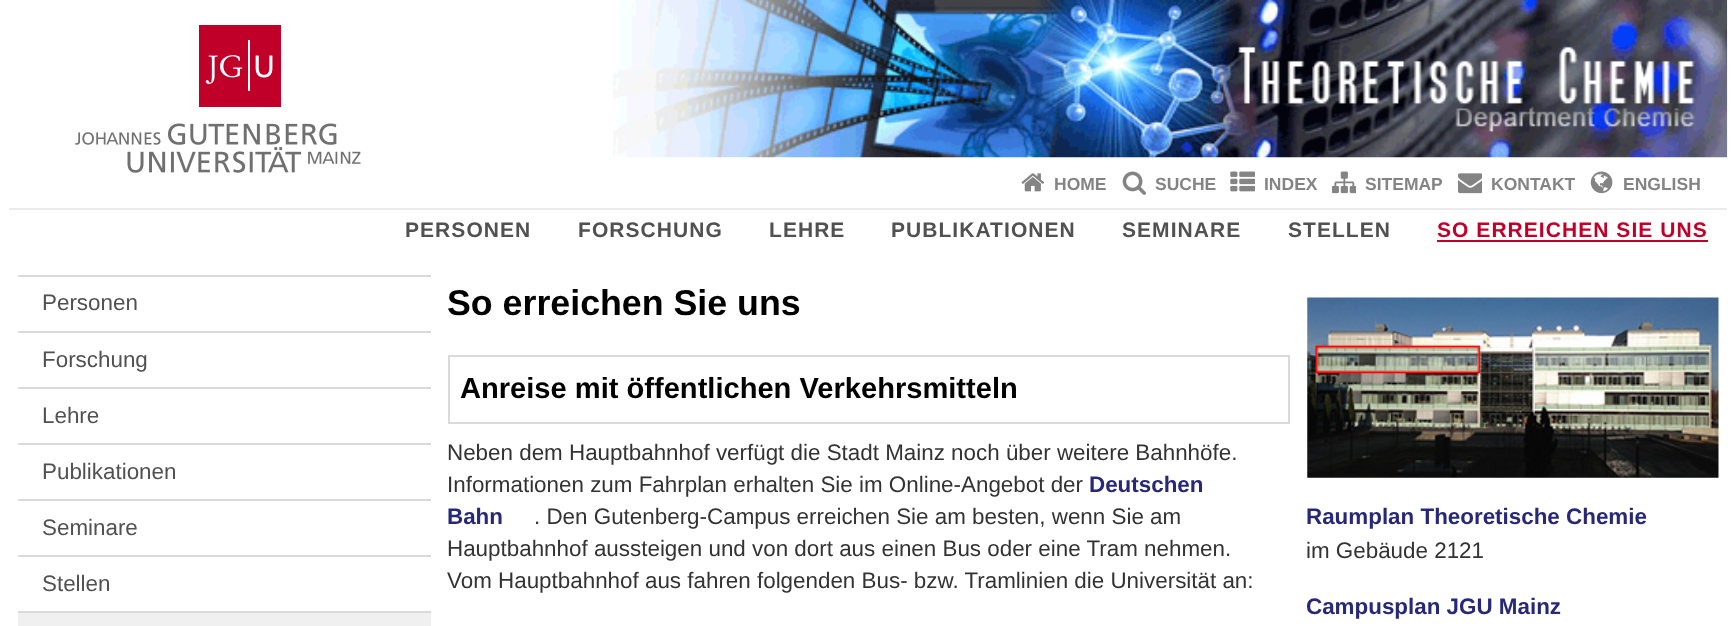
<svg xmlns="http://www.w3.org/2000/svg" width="1736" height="626">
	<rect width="100%" height="100%" fill="#FFFFFF" />
	<image x="75" y="25" width="286" height="148" href="assets/img1.png" />
	<image x="613" y="0" width="1115" height="158" href="assets/img2.png" />
	<image x="1021" y="173" width="24" height="19" href="assets/img3.png" />
	<text x="1054" y="190" font-family="Liberation Sans" font-size="17.5" font-weight="700" fill="#848484">HOME</text>
	<image x="1122" y="171" width="24" height="24" href="assets/img4.png" />
	<text x="1155" y="190" font-family="Liberation Sans" font-size="17.5" font-weight="700" fill="#848484">SUCHE</text>
	<image x="1230" y="171" width="25" height="21" href="assets/img5.png" />
	<text x="1264" y="190" font-family="Liberation Sans" font-size="17.5" font-weight="700" fill="#848484">INDEX</text>
	<image x="1332" y="171" width="24" height="23" href="assets/img6.png" />
	<text x="1365" y="190" font-family="Liberation Sans" font-size="17.5" font-weight="700" fill="#848484">SITEMAP</text>
	<image x="1458" y="173" width="24" height="21" href="assets/img7.png" />
	<text x="1491" y="190" font-family="Liberation Sans" font-size="17.5" font-weight="700" fill="#848484">KONTAKT</text>
	<image x="1590" y="171" width="23" height="23" href="assets/img8.png" />
	<text x="1623" y="190" font-family="Liberation Sans" font-size="17.5" font-weight="700" fill="#848484">ENGLISH</text>
	<rect x="9" y="208" width="1718" height="2" fill="#EBEBEB" />
	<g font-family="Liberation Sans" font-size="21" font-weight="700" letter-spacing="1.05" fill="#515151">
		<text x="405" y="237">PERSONEN</text>
		<text x="578" y="237">FORSCHUNG</text>
		<text x="769" y="237">LEHRE</text>
		<text x="891" y="237">PUBLIKATIONEN</text>
		<text x="1122" y="237">SEMINARE</text>
		<text x="1288" y="237">STELLEN</text>
	</g>
	<text x="1437" y="237" font-family="Liberation Sans" font-size="21" font-weight="700" letter-spacing="1.05" fill="#C1002A">SO ERREICHEN SIE UNS</text>
	<rect x="1437" y="240" width="271" height="2" fill="#C1002A" />
	<rect x="18" y="275" width="413" height="2" fill="#DADADA" />
	<text x="42" y="310" font-family="Liberation Sans" font-size="22.4" fill="#515151">Personen</text>
	<rect x="18" y="331" width="413" height="2" fill="#DADADA" />
	<text x="42" y="367" font-family="Liberation Sans" font-size="22.4" fill="#515151">Forschung</text>
	<rect x="18" y="387" width="413" height="2" fill="#DADADA" />
	<text x="42" y="423" font-family="Liberation Sans" font-size="22.4" fill="#515151">Lehre</text>
	<rect x="18" y="443" width="413" height="2" fill="#DADADA" />
	<text x="42" y="479" font-family="Liberation Sans" font-size="22.4" fill="#515151">Publikationen</text>
	<rect x="18" y="499" width="413" height="2" fill="#DADADA" />
	<text x="42" y="535" font-family="Liberation Sans" font-size="22.4" fill="#515151">Seminare</text>
	<rect x="18" y="555" width="413" height="2" fill="#DADADA" />
	<text x="42" y="591" font-family="Liberation Sans" font-size="22.4" fill="#515151">Stellen</text>
	<rect x="18" y="613" width="413" height="13" fill="#F0F0F0" />
	<rect x="18" y="611" width="413" height="2" fill="#DADADA" />
	<text x="447" y="315" font-family="Liberation Sans" font-size="35.75" font-weight="700" fill="#000000">So erreichen Sie uns</text>
	<rect x="449" y="356" width="840" height="67" fill="none" stroke="#DADADA" stroke-width="2" />
	<text x="460" y="398" font-family="Liberation Sans" font-size="29.1" font-weight="700" fill="#000000">Anreise mit öffentlichen Verkehrsmitteln</text>
	<g font-family="Liberation Sans" font-size="22.4" fill="#333333">
		<text x="447" y="460">Neben dem Hauptbahnhof verfügt die Stadt Mainz noch über weitere Bahnhöfe.</text>
		<text x="447" y="492">Informationen zum Fahrplan erhalten Sie im Online-Angebot der</text>
	</g>
	<g font-family="Liberation Sans" font-size="22.4" font-weight="700" fill="#282879">
		<text x="1089" y="492">Deutschen</text>
		<text x="447" y="524">Bahn</text>
	</g>
	<g font-family="Liberation Sans" font-size="22.4" fill="#333333">
		<text x="534" y="524">. Den Gutenberg-Campus erreichen Sie am besten, wenn Sie am</text>
		<text x="447" y="556">Hauptbahnhof aussteigen und von dort aus einen Bus oder eine Tram nehmen.</text>
		<text x="447" y="588">Vom Hauptbahnhof aus fahren folgenden Bus- bzw. Tramlinien die Universität an:</text>
	</g>
	<image x="1307" y="297" width="412" height="181" href="assets/img9.png" />
	<text x="1306" y="524" font-family="Liberation Sans" font-size="22.4" font-weight="700" fill="#282879">Raumplan Theoretische Chemie</text>
	<text x="1306" y="558" font-family="Liberation Sans" font-size="22.4" fill="#333333">im Gebäude 2121</text>
	<text x="1306" y="614" font-family="Liberation Sans" font-size="22.4" font-weight="700" fill="#282879">Campusplan JGU Mainz</text>
</svg>
